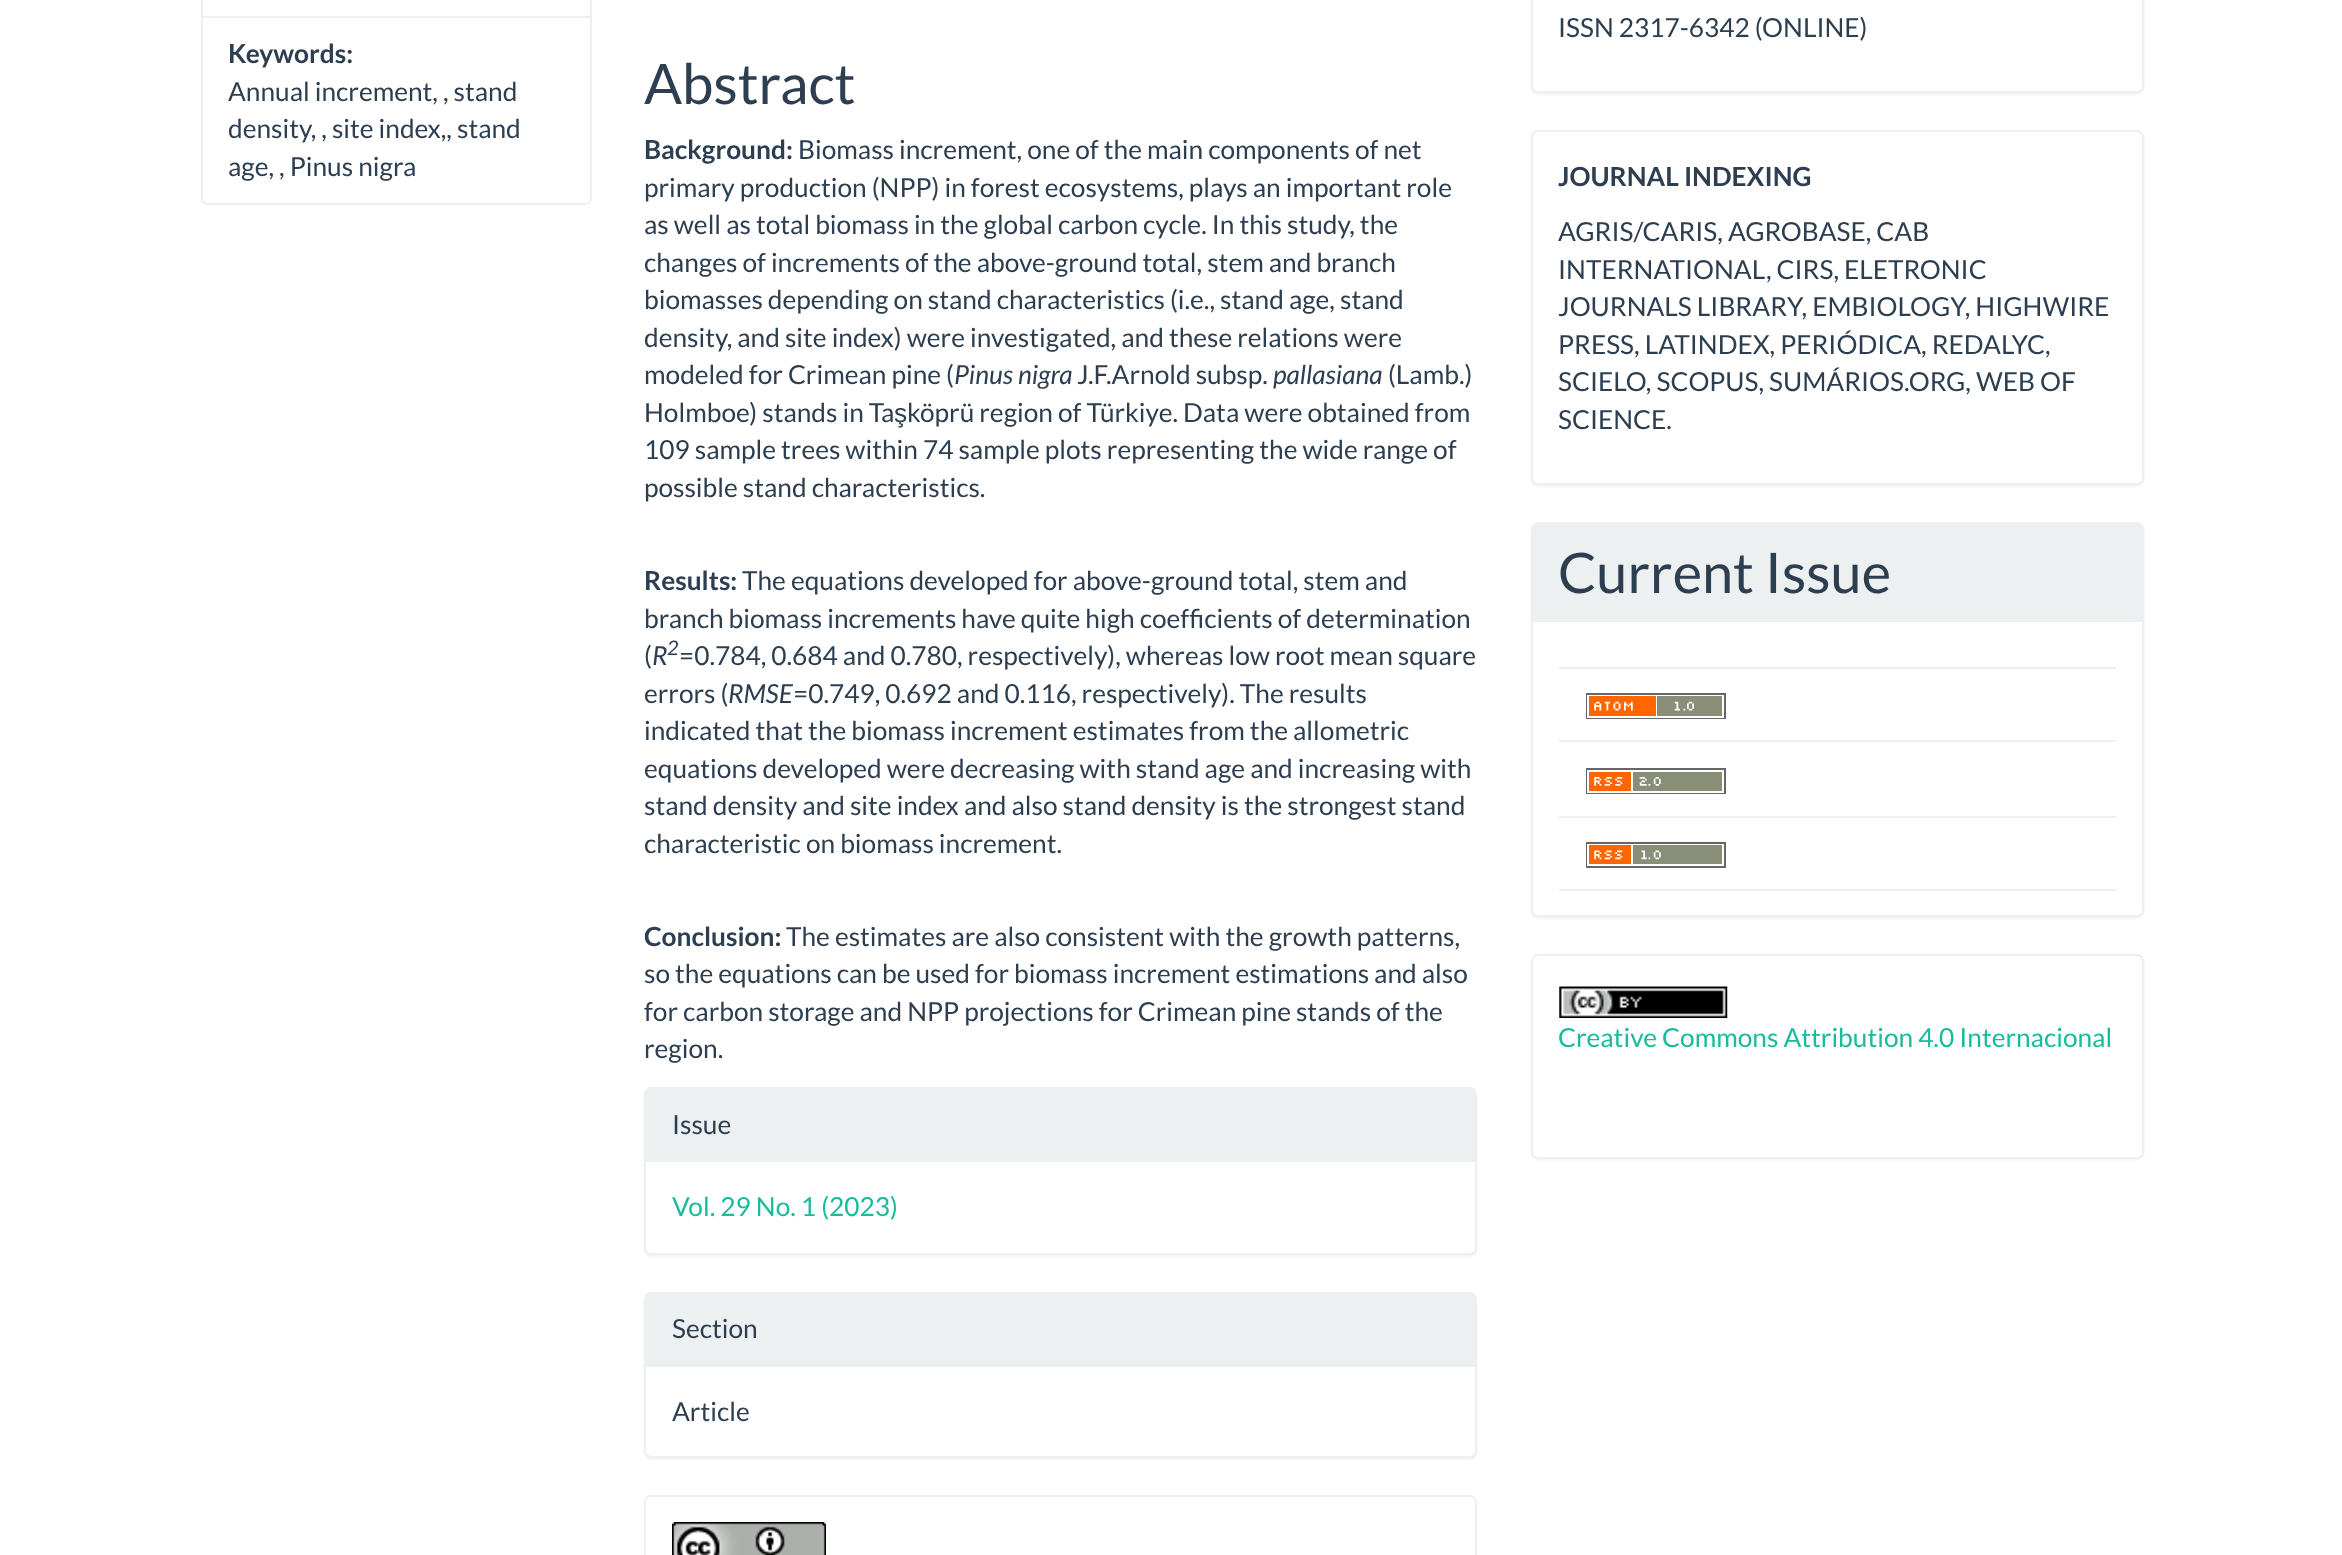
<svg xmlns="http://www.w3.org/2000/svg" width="2342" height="1555">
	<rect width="100%" height="100%" fill="#FFFFFF" />
	<rect x="202" y="-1" width="389" height="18" fill="none" stroke="#ECF0F1" stroke-width="2" />
	<path d="M202 17H591V198C591 201.5 588.5 204 585 204H208C204.5 204 202 201.5 202 198Z" fill="#FFFFFF" stroke="#ECF0F1" stroke-width="2" />
	<text x="228" y="63" font-family="Lato" font-size="26.25" font-weight="700" fill="#2C3E50">Keywords:</text>
	<g font-family="Lato" font-size="26.25" fill="#2C3E50">
		<text x="228" y="101">Annual increment, , stand</text>
		<text x="228" y="138">density, , site index,, stand</text>
		<text x="228" y="176">age, , Pinus nigra</text>
	</g>
	<text x="644" y="104" font-family="Lato" font-size="56" fill="#2C3E50">Abstract</text>
	<text x="644" y="159" font-family="Lato" font-size="26.25" font-weight="700" fill="#2C3E50">Background:</text>
	<g font-family="Lato" font-size="26.25" fill="#2C3E50">
		<text x="798" y="159">Biomass increment, one of the main components of net</text>
		<text x="644" y="197">primary production (NPP) in forest ecosystems, plays an important role</text>
		<text x="644" y="234">as well as total biomass in the global carbon cycle. In this study, the</text>
		<text x="644" y="272">changes of increments of the above-ground total, stem and branch</text>
		<text x="644" y="309">biomasses depending on stand characteristics (i.e., stand age, stand</text>
		<text x="644" y="347">density, and site index) were investigated, and these relations were</text>
		<text x="644" y="384">modeled for Crimean pine (</text>
	</g>
	<text x="954" y="384" font-family="Lato" font-size="26.25" font-style="italic" fill="#2C3E50">Pinus nigra</text>
	<text x="1077" y="384" font-family="Lato" font-size="26.25" fill="#2C3E50">J.F.Arnold subsp.</text>
	<text x="1273" y="384" font-family="Lato" font-size="26.25" font-style="italic" fill="#2C3E50">pallasiana</text>
	<g font-family="Lato" font-size="26.25" fill="#2C3E50">
		<text x="1388" y="384">(Lamb.)</text>
		<text x="644" y="422">Holmboe) stands in Ta</text>
	</g>
	<text x="894" y="422" font-family="Liberation Sans" font-size="26.25" fill="#2C3E50">ş</text>
	<g font-family="Lato" font-size="26.25" fill="#2C3E50">
		<text x="907" y="422">köprü region of Türkiye. Data were obtained from</text>
		<text x="644" y="459">109 sample trees within 74 sample plots representing the wide range of</text>
		<text x="644" y="497">possible stand characteristics.</text>
	</g>
	<text x="644" y="590" font-family="Lato" font-size="26.25" font-weight="700" fill="#2C3E50">Results:</text>
	<g font-family="Lato" font-size="26.25" fill="#2C3E50">
		<text x="742" y="590">The equations developed for above-ground total, stem and</text>
		<text x="644" y="628">branch biomass increments have quite high coefficients of determination</text>
		<text x="644" y="665">(</text>
	</g>
	<text x="652" y="665" font-family="Lato" font-size="26.25" font-style="italic" fill="#2C3E50">R</text>
	<text x="667" y="655" font-family="Lato" font-size="20" font-style="italic" fill="#2C3E50">2</text>
	<g font-family="Lato" font-size="26.25" fill="#2C3E50">
		<text x="679" y="665">=0.784, 0.684 and 0.780, respectively), whereas low root mean square</text>
		<text x="644" y="703">errors (</text>
	</g>
	<text x="728" y="703" font-family="Lato" font-size="26.25" font-style="italic" fill="#2C3E50">RMSE</text>
	<g font-family="Lato" font-size="26.25" fill="#2C3E50">
		<text x="793" y="703">=0.749, 0.692 and 0.116, respectively). The results</text>
		<text x="644" y="740">indicated that the biomass increment estimates from the allometric</text>
		<text x="644" y="778">equations developed were decreasing with stand age and increasing with</text>
		<text x="644" y="815">stand density and site index and also stand density is the strongest stand</text>
		<text x="644" y="853">characteristic on biomass increment.</text>
	</g>
	<text x="644" y="946" font-family="Lato" font-size="26.25" font-weight="700" fill="#2C3E50">Conclusion:</text>
	<g font-family="Lato" font-size="26.25" fill="#2C3E50">
		<text x="786" y="946">The estimates are also consistent with the growth patterns,</text>
		<text x="644" y="983">so the equations can be used for biomass increment estimations and also</text>
		<text x="644" y="1021">for carbon storage and NPP projections for Crimean pine stands of the</text>
		<text x="644" y="1058">region.</text>
	</g>
	<rect x="644" y="1089" width="833" height="168" rx="7" fill="#000000" fill-opacity="0.05" filter="blur(1px)" />
	<rect x="645" y="1088" width="831" height="166" rx="6" fill="#FFFFFF" stroke="#ECF0F1" stroke-width="2" />
	<path d="M651 1089H1470C1473 1089 1475 1091 1475 1094V1162H646V1094C646 1091 648 1089 651 1089Z" fill="#ECF0F1" />
	<text x="672" y="1134" font-family="Lato" font-size="26.25" fill="#2C3E50">Issue</text>
	<text x="672" y="1216" font-family="Lato" font-size="26.25" fill="#18BC9C">Vol. 29 No. 1 (2023)</text>
	<rect x="644" y="1293" width="833" height="167" rx="7" fill="#000000" fill-opacity="0.05" filter="blur(1px)" />
	<rect x="645" y="1293" width="831" height="164" rx="6" fill="#FFFFFF" stroke="#ECF0F1" stroke-width="2" />
	<path d="M651 1293H1470C1473 1293 1475 1295 1475 1298V1367H646V1298C646 1295 648 1293 651 1293Z" fill="#ECF0F1" />
	<g font-family="Lato" font-size="26.25" fill="#2C3E50">
		<text x="672" y="1338">Section</text>
		<text x="672" y="1421">Article</text>
	</g>
	<rect x="645" y="1496" width="831" height="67" rx="6" fill="none" stroke="#ECF0F1" stroke-width="2" />
	<image x="672" y="1522" width="154" height="33" href="assets/img1.png" />
	<rect x="1531" y="-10" width="613" height="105" rx="7" fill="#000000" fill-opacity="0.05" filter="blur(1px)" />
	<rect x="1532" y="-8" width="611" height="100" rx="6" fill="#FFFFFF" stroke="#ECF0F1" stroke-width="2" />
	<text x="1558" y="37" font-family="Lato" font-size="26.25" fill="#2C3E50">ISSN 2317-6342 (ONLINE)</text>
	<rect x="1531" y="131" width="613" height="356" rx="7" fill="#000000" fill-opacity="0.05" filter="blur(1px)" />
	<rect x="1532" y="131" width="611" height="353" rx="6" fill="#FFFFFF" stroke="#ECF0F1" stroke-width="2" />
	<text x="1558" y="186" font-family="Lato" font-size="26.25" font-weight="700" fill="#2C3E50">JOURNAL INDEXING</text>
	<g font-family="Lato" font-size="26.25" fill="#2C3E50">
		<text x="1558" y="241">AGRIS/CARIS, AGROBASE, CAB</text>
		<text x="1558" y="279">INTERNATIONAL, CIRS, ELETRONIC</text>
		<text x="1558" y="316">JOURNALS LIBRARY, EMBIOLOGY, HIGHWIRE</text>
		<text x="1558" y="354">PRESS, LATINDEX, PERIÓDICA, REDALYC,</text>
		<text x="1558" y="391">SCIELO, SCOPUS, SUMÁRIOS.ORG, WEB OF</text>
		<text x="1558" y="429">SCIENCE.</text>
	</g>
	<rect x="1531" y="523" width="613" height="396" rx="7" fill="#000000" fill-opacity="0.05" filter="blur(1px)" />
	<rect x="1532" y="523" width="611" height="393" rx="6" fill="#FFFFFF" stroke="#ECF0F1" stroke-width="2" />
	<path d="M1538 523H2137C2140 523 2142 525 2142 528V621H1533V528C1533 525 1535 523 1538 523Z" fill="#ECF0F1" />
	<rect x="1533" y="621" width="609" height="1" fill="#ECF0F1" />
	<text x="1558" y="593" font-family="Lato" font-size="56" fill="#2C3E50">Current Issue</text>
	<rect x="1559" y="667" width="557" height="2" fill="#ECF0F1" />
	<rect x="1559" y="740" width="557" height="2" fill="#ECF0F1" />
	<image x="1586" y="693" width="140" height="26" href="assets/img2.png" />
	<image x="1586" y="768" width="140" height="26" href="assets/img3.png" />
	<rect x="1559" y="816" width="557" height="2" fill="#ECF0F1" />
	<rect x="1559" y="889" width="557" height="2" fill="#ECF0F1" />
	<image x="1586" y="842" width="140" height="26" href="assets/img4.png" />
	<rect x="1531" y="956" width="613" height="204" rx="7" fill="#000000" fill-opacity="0.05" filter="blur(1px)" />
	<rect x="1532" y="955" width="611" height="203" rx="6" fill="#FFFFFF" stroke="#ECF0F1" stroke-width="2" />
	<image x="1559" y="986" width="169" height="32" href="assets/img5.png" />
	<text x="1558" y="1047" font-family="Lato" font-size="26.25" fill="#18BC9C">Creative Commons Attribution 4.0 Internacional</text>
</svg>
